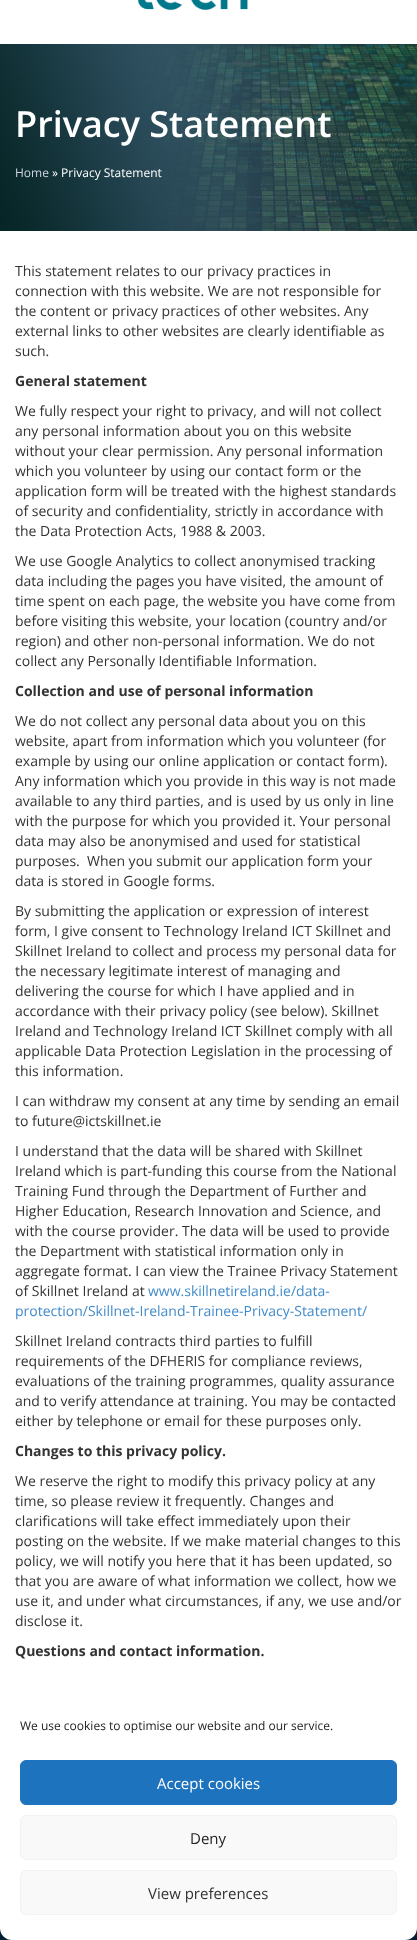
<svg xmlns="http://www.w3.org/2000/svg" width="417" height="1940">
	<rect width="100%" height="100%" fill="#FFFFFF" />
	<image x="137" y="0" width="111" height="11" href="assets/img1.png" />
	<image x="0" y="44" width="417" height="187" href="assets/img2.png" />
	<text x="15" y="137" font-family="Open Sans" font-size="36" font-weight="600" fill="#FFFFFF">Privacy Statement</text>
	<text x="15" y="177" font-family="Open Sans" font-size="12" fill="#CBD6E1">Home</text>
	<text x="52" y="177" font-family="Open Sans" font-size="12" fill="#FFFFFF">» Privacy Statement</text>
	<g font-family="Open Sans" font-size="14" fill="#333333">
		<text x="15" y="276">This statement relates to our privacy practices in</text>
		<text x="15" y="296">connection with this website. We are not responsible for</text>
		<text x="15" y="316">the content or privacy practices of other websites. Any</text>
		<text x="15" y="336">external links to other websites are clearly identifiable as</text>
		<text x="15" y="356">such.</text>
	</g>
	<text x="15" y="386" font-family="Open Sans" font-size="14" font-weight="700" fill="#333333">General statement</text>
	<g font-family="Open Sans" font-size="14" fill="#333333">
		<text x="15" y="416">We fully respect your right to privacy, and will not collect</text>
		<text x="15" y="436">any personal information about you on this website</text>
		<text x="15" y="456">without your clear permission. Any personal information</text>
		<text x="15" y="476">which you volunteer by using our contact form or the</text>
		<text x="15" y="496">application form will be treated with the highest standards</text>
		<text x="15" y="516">of security and confidentiality, strictly in accordance with</text>
		<text x="15" y="536">the Data Protection Acts, 1988 &amp; 2003.</text>
		<text x="15" y="566">We use Google Analytics to collect anonymised tracking</text>
		<text x="15" y="586">data including the pages you have visited, the amount of</text>
		<text x="15" y="606">time spent on each page, the website you have come from</text>
		<text x="15" y="626">before visiting this website, your location (country and/or</text>
		<text x="15" y="646">region) and other non-personal information. We do not</text>
		<text x="15" y="666">collect any Personally Identifiable Information.</text>
	</g>
	<text x="15" y="696" font-family="Open Sans" font-size="14" font-weight="700" fill="#333333">Collection and use of personal information</text>
	<g font-family="Open Sans" font-size="14" fill="#333333">
		<text x="15" y="726">We do not collect any personal data about you on this</text>
		<text x="15" y="746">website, apart from information which you volunteer (for</text>
		<text x="15" y="766">example by using our online application or contact form).</text>
		<text x="15" y="786">Any information which you provide in this way is not made</text>
		<text x="15" y="806">available to any third parties, and is used by us only in line</text>
		<text x="15" y="826">with the purpose for which you provided it. Your personal</text>
		<text x="15" y="846">data may also be anonymised and used for statistical</text>
		<text x="15" y="866" xml:space="preserve">purposes.  When you submit our application form your</text>
		<text x="15" y="886">data is stored in Google forms.</text>
		<text x="15" y="916">By submitting the application or expression of interest</text>
		<text x="15" y="936">form, I give consent to Technology Ireland ICT Skillnet and</text>
		<text x="15" y="956">Skillnet Ireland to collect and process my personal data for</text>
		<text x="15" y="976">the necessary legitimate interest of managing and</text>
		<text x="15" y="996">delivering the course for which I have applied and in</text>
		<text x="15" y="1016">accordance with their privacy policy (see below). Skillnet</text>
		<text x="15" y="1036">Ireland and Technology Ireland ICT Skillnet comply with all</text>
		<text x="15" y="1056">applicable Data Protection Legislation in the processing of</text>
		<text x="15" y="1076">this information.</text>
		<text x="15" y="1106">I can withdraw my consent at any time by sending an email</text>
		<text x="15" y="1126">to future@ictskillnet.ie</text>
		<text x="15" y="1156">I understand that the data will be shared with Skillnet</text>
		<text x="15" y="1176">Ireland which is part-funding this course from the National</text>
		<text x="15" y="1196">Training Fund through the Department of Further and</text>
		<text x="15" y="1216">Higher Education, Research Innovation and Science, and</text>
		<text x="15" y="1236">with the course provider. The data will be used to provide</text>
		<text x="15" y="1256">the Department with statistical information only in</text>
		<text x="15" y="1276">aggregate format. I can view the Trainee Privacy Statement</text>
		<text x="15" y="1296">of Skillnet Ireland at</text>
	</g>
	<g font-family="Open Sans" font-size="14" fill="#428BCA">
		<text x="148" y="1296">www.skillnetireland.ie/data-</text>
		<text x="15" y="1316">protection/Skillnet-Ireland-Trainee-Privacy-Statement/</text>
	</g>
	<g font-family="Open Sans" font-size="14" fill="#333333">
		<text x="15" y="1346">Skillnet Ireland contracts third parties to fulfill</text>
		<text x="15" y="1366">requirements of the DFHERIS for compliance reviews,</text>
		<text x="15" y="1386">evaluations of the training programmes, quality assurance</text>
		<text x="15" y="1406">and to verify attendance at training. You may be contacted</text>
		<text x="15" y="1426">either by telephone or email for these purposes only.</text>
	</g>
	<text x="15" y="1456" font-family="Open Sans" font-size="14" font-weight="700" fill="#333333">Changes to this privacy policy.</text>
	<g font-family="Open Sans" font-size="14" fill="#333333">
		<text x="15" y="1486">We reserve the right to modify this privacy policy at any</text>
		<text x="15" y="1506">time, so please review it frequently. Changes and</text>
		<text x="15" y="1526">clarifications will take effect immediately upon their</text>
		<text x="15" y="1546">posting on the website. If we make material changes to this</text>
		<text x="15" y="1566">policy, we will notify you here that it has been updated, so</text>
		<text x="15" y="1586">that you are aware of what information we collect, how we</text>
		<text x="15" y="1606">use it, and under what circumstances, if any, we use and/or</text>
		<text x="15" y="1626">disclose it.</text>
	</g>
	<text x="15" y="1656" font-family="Open Sans" font-size="14" font-weight="700" fill="#333333">Questions and contact information.</text>
	<rect x="0" y="1928" width="417" height="12" fill="#001F33" />
	<rect x="0" y="1682" width="417" height="258" rx="12" fill="#FFFFFF" />
	<text x="20" y="1730" font-family="Open Sans" font-size="12" fill="#222222">We use cookies to optimise our website and our service.</text>
	<rect x="20.5" y="1760.5" width="376" height="44" rx="5.5" fill="#1E73BE" stroke="#1E73BE" />
	<text x="157" y="1789" font-family="Open Sans" font-size="15" fill="#FFFFFF">Accept cookies</text>
	<rect x="20.5" y="1815.5" width="376" height="44" rx="5.5" fill="#F9F9F9" stroke="#F2F2F2" />
	<text x="190" y="1844" font-family="Open Sans" font-size="15" fill="#222222">Deny</text>
	<rect x="20.5" y="1870.5" width="376" height="44" rx="5.5" fill="#F9F9F9" stroke="#F2F2F2" />
	<text x="148" y="1899" font-family="Open Sans" font-size="15" fill="#333333">View preferences</text>
</svg>
